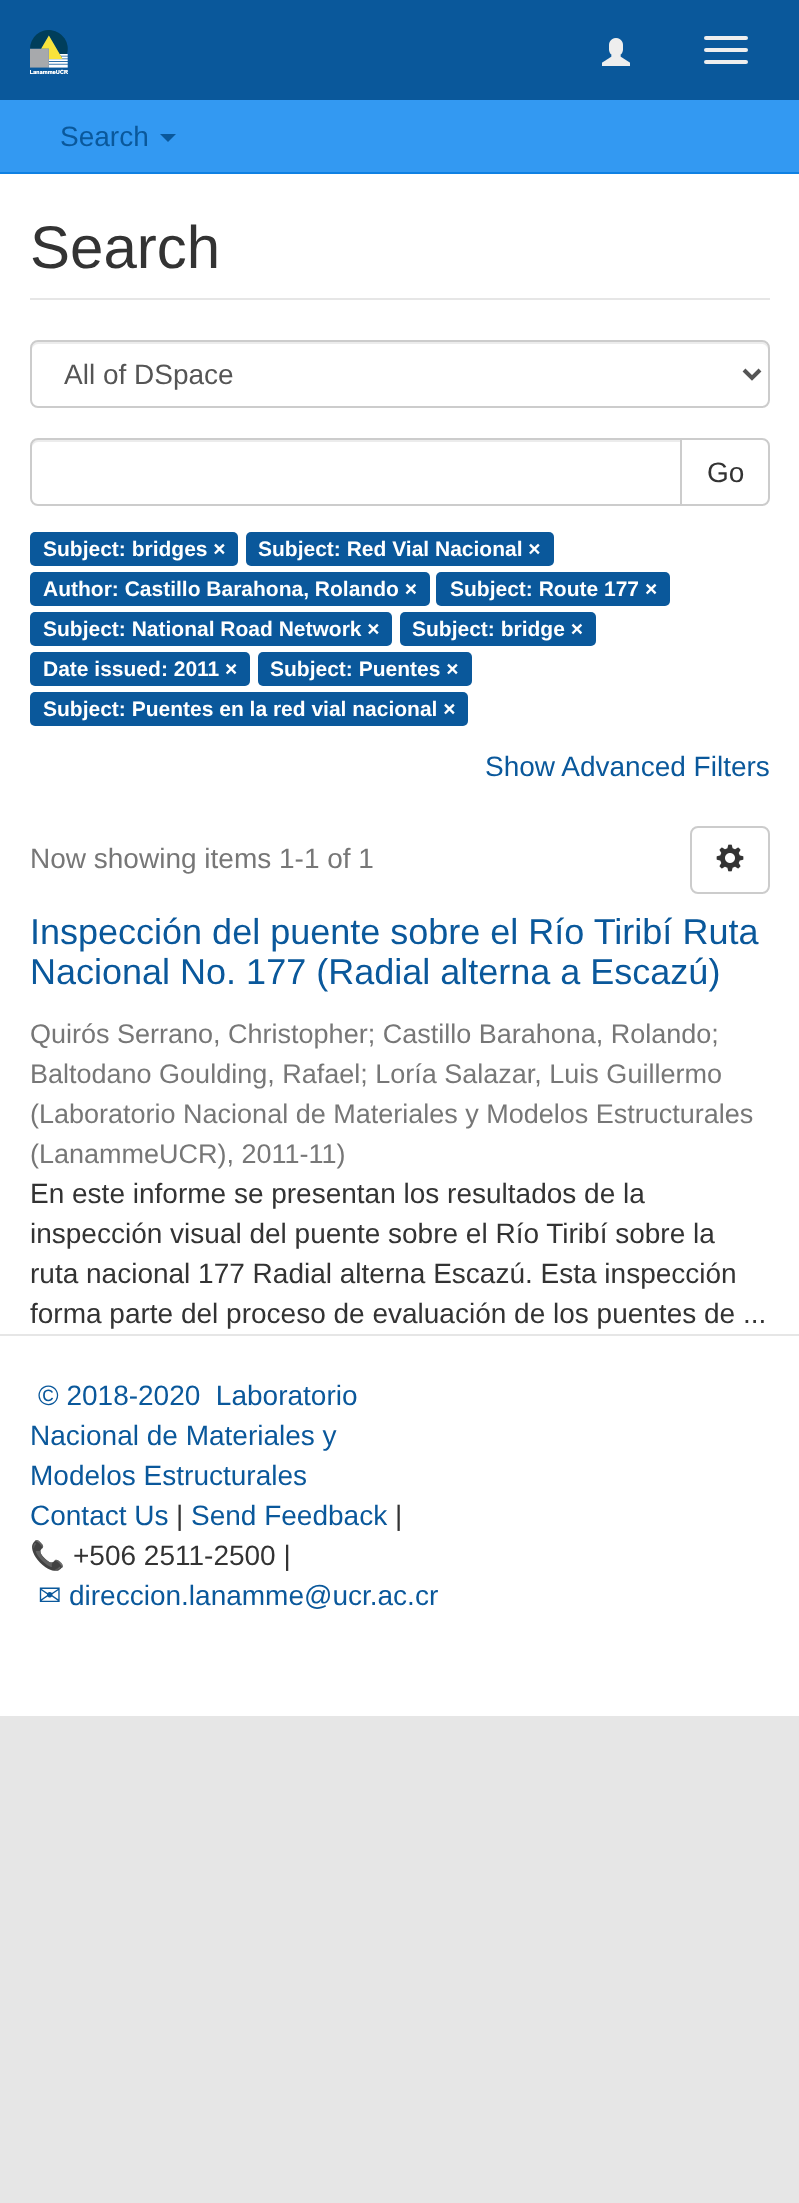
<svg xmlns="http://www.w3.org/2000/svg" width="799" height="2203">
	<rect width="100%" height="100%" fill="#E6E6E6" />
	<rect x="0" y="0" width="799" height="100" fill="#0A589B" />
	<image x="30" y="30" width="38" height="44" href="assets/img1.png" />
	<image x="602" y="38" width="28" height="28" href="assets/img2.png" />
	<rect x="704" y="36" width="44" height="4" rx="2" fill="#EEEEEE" />
	<rect x="704" y="48" width="44" height="4" rx="2" fill="#EEEEEE" />
	<rect x="704" y="60" width="44" height="4" rx="2" fill="#EEEEEE" />
	<rect x="0" y="100" width="799" height="72" fill="#3399F2" />
	<rect x="0" y="172" width="799" height="2" fill="#0F81E3" />
	<text x="60" y="146" font-family="Liberation Sans" font-size="28" fill="#0A589B">Search</text>
	<path d="M160 134H176L168 142Z" fill="#0A589B" />
	<rect x="0" y="174" width="799" height="1542" fill="#FFFFFF" />
	<rect x="30" y="298" width="740" height="2" fill="#E6E6E6" />
	<text x="30" y="268" font-family="Liberation Sans" font-size="60" fill="#333333">Search</text>
	<path d="M38 344H762C765 344 768 347 768 350V348C768 345 765 342 762 342H38C35 342 32 345 32 348V350C32 347 35 344 38 344Z" fill="#ECECEC" />
	<rect x="31" y="341" width="738" height="66" rx="7" fill="none" stroke="#CCCCCC" stroke-width="2" />
	<path d="M744 370L752 378L760 370" fill="none" stroke="#555555" stroke-width="4" />
	<text x="64" y="384" font-family="Liberation Sans" font-size="28" fill="#555555">All of DSpace</text>
	<path d="M681 439H762C766 439 769 442 769 446V498C769 502 766 505 762 505H681Z" fill="none" stroke="#CCCCCC" stroke-width="2" />
	<path d="M38 438H682V506H38C33.5 506 30 502.5 30 498V446C30 441.5 33.5 438 38 438Z" fill="#FFFFFF" />
	<path d="M38 442H680V440H38C33 440 32 444 32 448C32 445 35 442 38 442Z" fill="#ECECEC" />
	<path d="M38 439H681V505H38C34 505 31 502 31 498V446C31 442 34 439 38 439Z" fill="none" stroke="#CCCCCC" stroke-width="2" />
	<text x="707" y="482" font-family="Liberation Sans" font-size="28" fill="#333333">Go</text>
	<rect x="30" y="532" width="208" height="34" rx="5" fill="#0A589B" />
	<text x="43" y="556" font-family="Liberation Sans" font-size="21" font-weight="700" fill="#FFFFFF">Subject: bridges ×</text>
	<rect x="246" y="532" width="308" height="34" rx="5" fill="#0A589B" />
	<text x="258" y="556" font-family="Liberation Sans" font-size="21" font-weight="700" fill="#FFFFFF">Subject: Red Vial Nacional ×</text>
	<rect x="30" y="572" width="400" height="34" rx="5" fill="#0A589B" />
	<text x="43" y="596" font-family="Liberation Sans" font-size="21" font-weight="700" fill="#FFFFFF">Author: Castillo Barahona, Rolando ×</text>
	<rect x="436" y="572" width="234" height="34" rx="5" fill="#0A589B" />
	<text x="450" y="596" font-family="Liberation Sans" font-size="21" font-weight="700" fill="#FFFFFF">Subject: Route 177 ×</text>
	<rect x="30" y="612" width="362" height="34" rx="5" fill="#0A589B" />
	<text x="43" y="636" font-family="Liberation Sans" font-size="21" font-weight="700" fill="#FFFFFF">Subject: National Road Network ×</text>
	<rect x="400" y="612" width="196" height="34" rx="5" fill="#0A589B" />
	<text x="412" y="636" font-family="Liberation Sans" font-size="21" font-weight="700" fill="#FFFFFF">Subject: bridge ×</text>
	<rect x="30" y="652" width="220" height="34" rx="5" fill="#0A589B" />
	<text x="43" y="676" font-family="Liberation Sans" font-size="21" font-weight="700" fill="#FFFFFF">Date issued: 2011 ×</text>
	<rect x="258" y="652" width="214" height="34" rx="5" fill="#0A589B" />
	<text x="270" y="676" font-family="Liberation Sans" font-size="21" font-weight="700" fill="#FFFFFF">Subject: Puentes ×</text>
	<rect x="30" y="692" width="438" height="34" rx="5" fill="#0A589B" />
	<text x="43" y="716" font-family="Liberation Sans" font-size="21" font-weight="700" fill="#FFFFFF">Subject: Puentes en la red vial nacional ×</text>
	<text x="485" y="776" font-family="Liberation Sans" font-size="28" fill="#0A589B">Show Advanced Filters</text>
	<text x="30" y="868" font-family="Liberation Sans" font-size="28" fill="#777777">Now showing items 1-1 of 1</text>
	<rect x="691" y="827" width="78" height="66" rx="7" fill="none" stroke="#CCCCCC" stroke-width="2" />
	<image x="716" y="844" width="28" height="28" href="assets/img3.png" />
	<g font-family="Liberation Sans" font-size="36" fill="#0A589B">
		<text x="30" y="944">Inspección del puente sobre el Río Tiribí Ruta</text>
		<text x="30" y="984">Nacional No. 177 (Radial alterna a Escazú)</text>
	</g>
	<g font-family="Liberation Sans" font-size="27" fill="#777777">
		<text x="30" y="1043">Quirós Serrano, Christopher; Castillo Barahona, Rolando;</text>
		<text x="30" y="1083">Baltodano Goulding, Rafael; Loría Salazar, Luis Guillermo</text>
		<text x="30" y="1123">(Laboratorio Nacional de Materiales y Modelos Estructurales</text>
		<text x="30" y="1163">(LanammeUCR), 2011-11)</text>
	</g>
	<g font-family="Liberation Sans" font-size="28" fill="#333333">
		<text x="30" y="1203">En este informe se presentan los resultados de la</text>
		<text x="30" y="1243">inspección visual del puente sobre el Río Tiribí sobre la</text>
		<text x="30" y="1283">ruta nacional 177 Radial alterna Escazú. Esta inspección</text>
		<text x="30" y="1323">forma parte del proceso de evaluación de los puentes de ...</text>
	</g>
	<rect x="0" y="1334" width="799" height="2" fill="#E6E6E6" />
	<g font-family="Liberation Sans" font-size="28" fill="#0A589B">
		<text x="38" y="1405" xml:space="preserve">© 2018-2020  Laboratorio</text>
		<text x="30" y="1445">Nacional de Materiales y</text>
		<text x="30" y="1485">Modelos Estructurales</text>
		<text x="30" y="1525">Contact Us</text>
	</g>
	<text x="176" y="1525" font-family="Liberation Sans" font-size="28" fill="#333333">|</text>
	<text x="191" y="1525" font-family="Liberation Sans" font-size="28" fill="#0A589B">Send Feedback</text>
	<text x="395" y="1525" font-family="Liberation Sans" font-size="28" fill="#333333">|</text>
	<text x="30" y="1565" font-family="Noto Color Emoji" font-size="28" fill="#333333">📞</text>
	<text x="73" y="1565" font-family="Liberation Sans" font-size="28" fill="#333333">+506 2511-2500 |</text>
	<text x="38" y="1605" font-family="DejaVu Sans" font-size="28" fill="#0A589B">✉</text>
	<text x="69" y="1605" font-family="Liberation Sans" font-size="28" fill="#0A589B">direccion.lanamme@ucr.ac.cr</text>
</svg>
